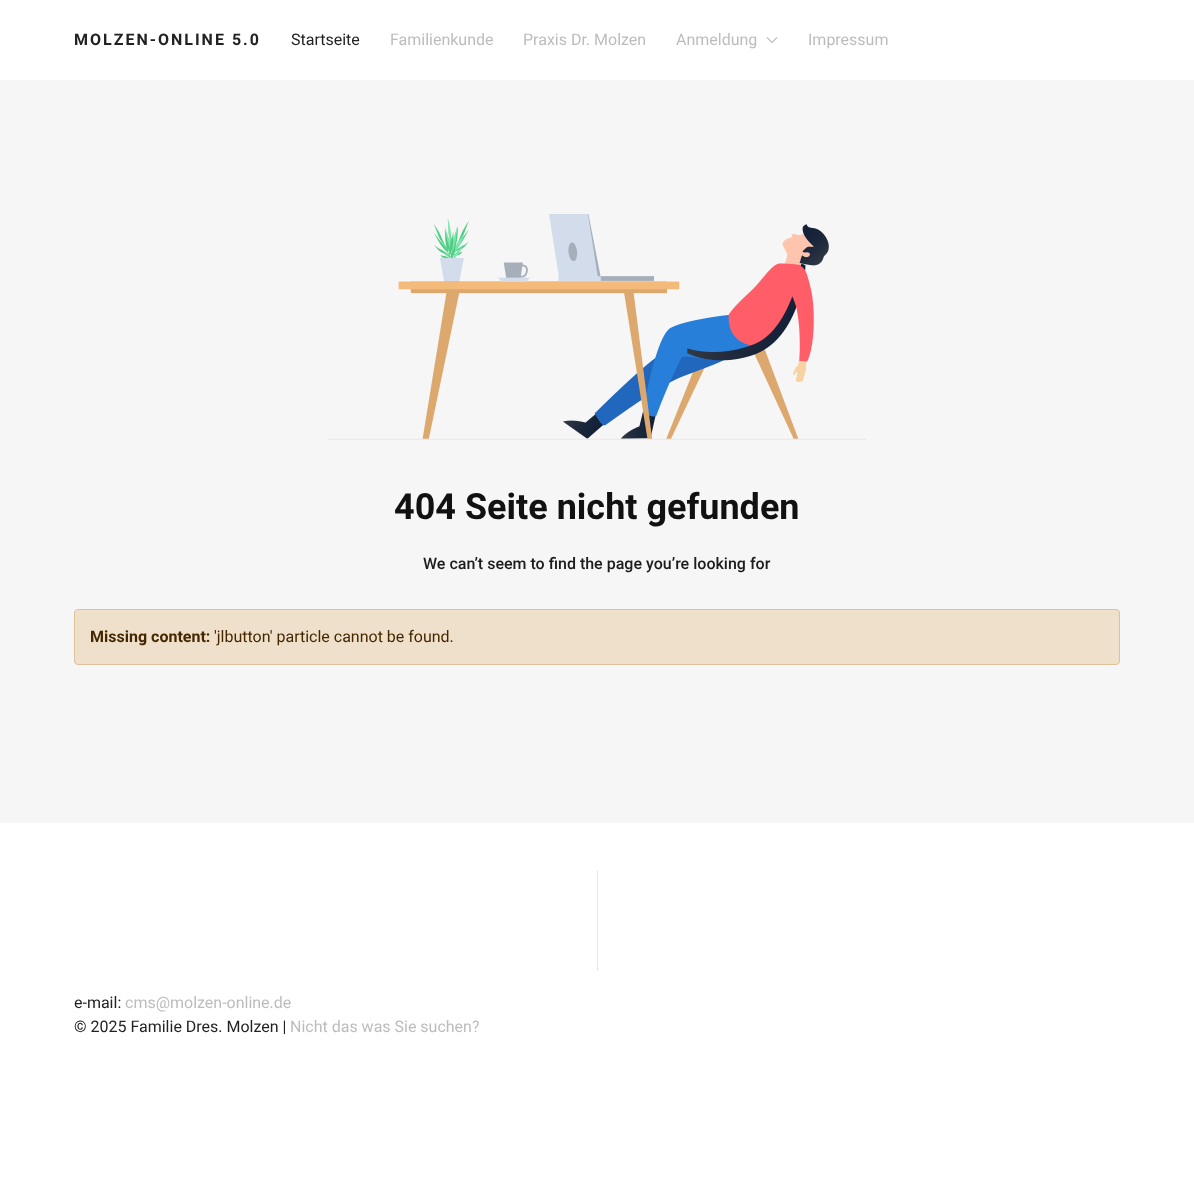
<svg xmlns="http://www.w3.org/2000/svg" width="1194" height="1177">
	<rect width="100%" height="100%" fill="#FFFFFF" />
	<text x="74" y="45" font-family="Roboto" font-size="16" font-weight="700" letter-spacing="2" fill="#222222">MOLZEN-ONLINE 5.0</text>
	<text x="291" y="45" font-family="Roboto" font-size="16" fill="#222222">Startseite</text>
	<g font-family="Roboto" font-size="16" fill="#BCBCBC">
		<text x="390" y="45">Familienkunde</text>
		<text x="523" y="45">Praxis Dr. Molzen</text>
		<text x="676" y="45">Anmeldung</text>
	</g>
	<path d="M767 37.5L772 42.5L777 37.5" fill="none" stroke="#BCBCBC" stroke-width="1.1" />
	<text x="808" y="45" font-family="Roboto" font-size="16" fill="#BCBCBC">Impressum</text>
	<rect x="0" y="80" width="1194" height="743" fill="#F6F6F6" />
	<image x="328" y="214" width="538" height="226" href="assets/img1.png" />
	<text x="394" y="519" font-family="Roboto" font-size="36" font-weight="700" fill="#111111">404 Seite nicht gefunden</text>
	<text x="423" y="569" font-family="Roboto" font-size="16" font-weight="500" fill="#1C1C1C">We can’t seem to find the page you’re looking for</text>
	<rect x="74.5" y="609.5" width="1045" height="55" rx="3.5" fill="#EFE0CC" stroke="#DEC099" />
	<text x="90" y="642" font-family="Roboto" font-size="16" font-weight="700" fill="#452700">Missing content:</text>
	<text x="214" y="642" font-family="Roboto" font-size="16" fill="#452700">'jlbutton' particle cannot be found.</text>
	<rect x="597" y="871" width="1" height="100" fill="#E5E5E5" />
	<text x="74" y="1008" font-family="Roboto" font-size="16" fill="#222222">e-mail:</text>
	<text x="125" y="1008" font-family="Roboto" font-size="16" fill="#BCBCBC">cms@molzen-online.de</text>
	<text x="74" y="1032" font-family="Roboto" font-size="16" fill="#222222">© 2025 Familie Dres. Molzen |</text>
	<text x="290" y="1032" font-family="Roboto" font-size="16" fill="#BCBCBC">Nicht das was Sie suchen?</text>
</svg>
